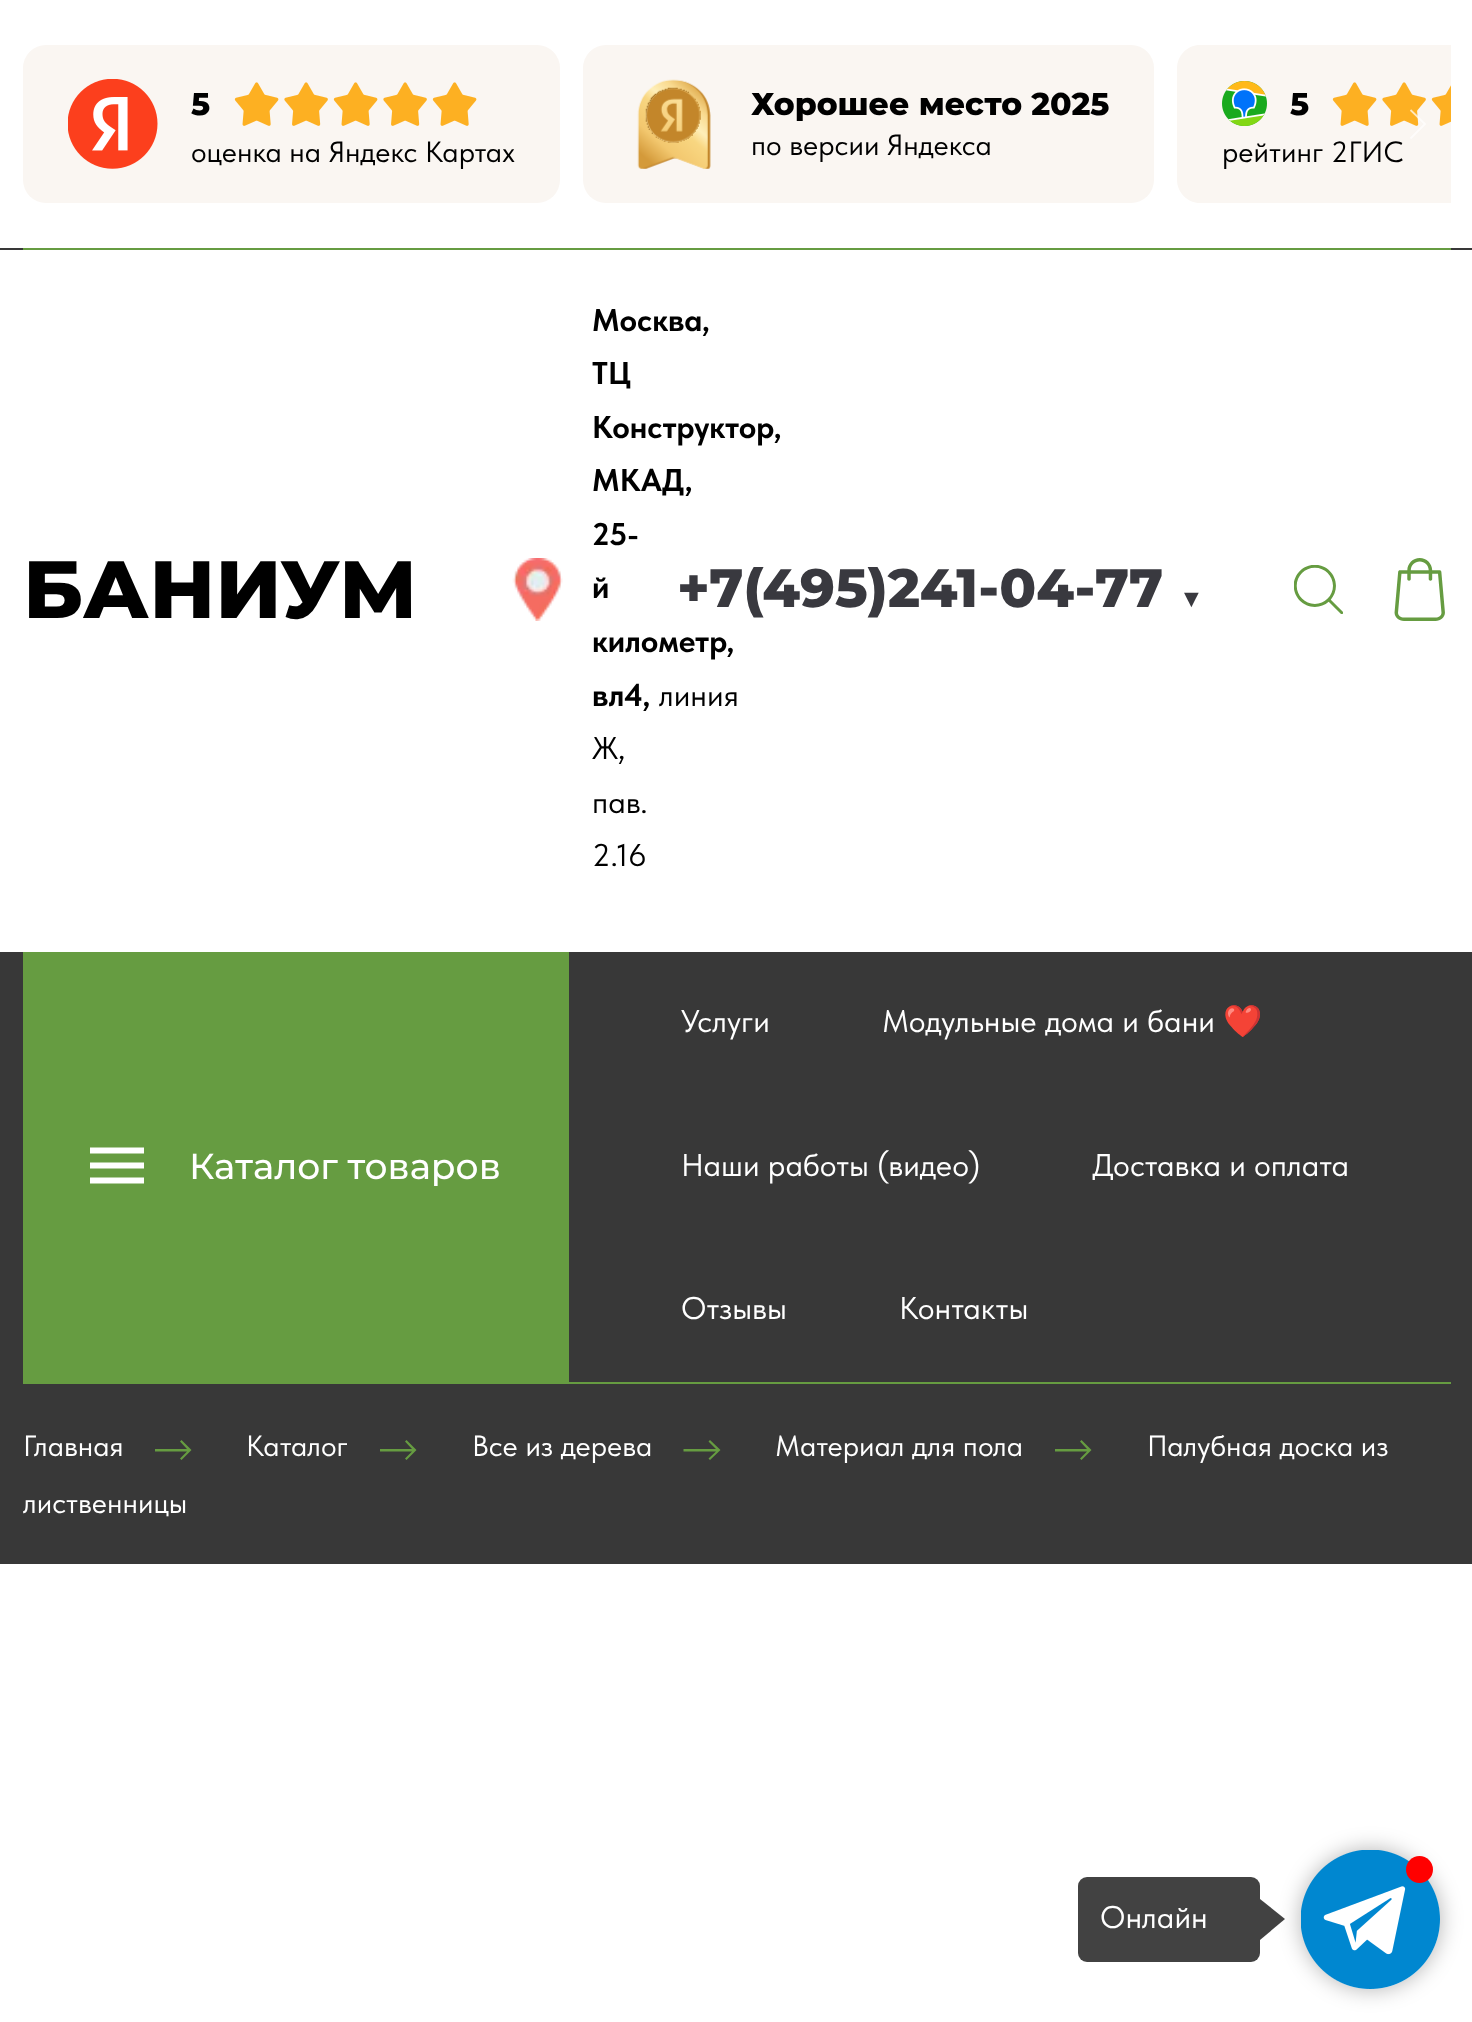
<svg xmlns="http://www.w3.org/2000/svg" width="1472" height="2022">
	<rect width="100%" height="100%" fill="#FFFFFF" />
	<rect x="23" y="45" width="537" height="158" rx="23" fill="#FAF6F2" />
	<image x="68" y="79" width="90" height="90" href="assets/img1.png" />
	<text x="191" y="115" font-family="Montserrat" font-size="31.5" font-weight="800" fill="#000000">5</text>
	<image x="234" y="82" width="45" height="44" href="assets/img2.png" />
	<image x="284" y="82" width="44" height="44" href="assets/img3.png" />
	<image x="333" y="82" width="45" height="44" href="assets/img2.png" />
	<image x="383" y="82" width="44" height="44" href="assets/img3.png" />
	<image x="432" y="82" width="45" height="44" href="assets/img2.png" />
	<text x="191" y="162" font-family="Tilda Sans" font-size="29.25" fill="#000000">оценка на Яндекс Картах</text>
	<rect x="583" y="45" width="571" height="158" rx="23" fill="#FAF6F2" />
	<image x="637" y="79" width="74" height="90" href="assets/img4.png" />
	<text x="751" y="115" font-family="Montserrat" font-size="31.5" font-weight="800" fill="#000000">Хорошее место 2025</text>
	<text x="751" y="155" font-family="Tilda Sans" font-size="29.25" fill="#000000">по версии Яндекса</text>
	<path d="M1200 45H1451V203H1200C1187.5 203 1177 192.5 1177 180V68C1177 55.5 1187.5 45 1200 45Z" fill="#FAF6F2" />
	<image x="1222" y="81" width="45" height="45" href="assets/img5.png" />
	<text x="1290" y="115" font-family="Montserrat" font-size="31.5" font-weight="800" fill="#000000">5</text>
	<image x="1332" y="82" width="45" height="44" href="assets/img2.png" />
	<image x="1382" y="82" width="44" height="44" href="assets/img3.png" />
	<image x="1431" y="85" width="20" height="41" href="assets/img6.png" />
	<text x="1222" y="162" font-family="Tilda Sans" font-size="29.25" fill="#000000">рейтинг 2ГИС</text>
	<path d="M1410.5 110L1425 124L1410.5 138.5" fill="none" stroke="#FFFFFF" stroke-opacity="0.7" stroke-width="1.8" />
	<rect x="0" y="248" width="1472" height="2" fill="#383838" />
	<rect x="23" y="248" width="1428" height="2" fill="#669C41" />
	<text x="23" y="618" font-family="Montserrat" font-size="81" font-weight="800" fill="#000000">БАНИУМ</text>
	<image x="512" y="558" width="51" height="63" href="assets/img7.png" />
	<g font-family="Tilda Sans" font-size="31.5" font-weight="700" fill="#000000">
		<text x="592" y="331">Москва,</text>
		<text x="592" y="384">ТЦ</text>
		<text x="592" y="438">Конструктор</text>
		<text x="774" y="438">,</text>
		<text x="592" y="491">МКАД,</text>
		<text x="592" y="545">25-</text>
		<text x="592" y="598">й</text>
		<text x="592" y="652">километр,</text>
		<text x="592" y="706">вл4,</text>
	</g>
	<g font-family="Tilda Sans" font-size="31.5" fill="#000000">
		<text x="659" y="706">линия</text>
		<text x="592" y="759">Ж,</text>
		<text x="592" y="813">пав.</text>
		<text x="592" y="866">2.16</text>
	</g>
	<image x="1294" y="565" width="49" height="49" href="assets/img8.png" />
	<image x="1394" y="558" width="51" height="63" href="assets/img9.png" />
	<text x="677" y="607" font-family="Montserrat" font-size="54" font-weight="800" fill="#39393F">+7(495)241-04-77</text>
	<text x="1179" y="607" font-family="Liberation Sans" font-size="25" font-weight="700" fill="#39393F">▼</text>
	<rect x="0" y="952" width="1472" height="612" fill="#383838" />
	<rect x="23" y="952" width="546" height="430" fill="#669C41" />
	<image x="90" y="1147" width="54" height="37" href="assets/img10.png" />
	<text x="189" y="1179" font-family="Montserrat" font-size="36" font-weight="500" fill="#FFFFFF">Каталог товаров</text>
	<g font-family="Tilda Sans" font-size="31.5" fill="#FFFFFF">
		<text x="681" y="1032">Услуги</text>
		<text x="882" y="1032">Модульные дома и бани</text>
	</g>
	<text x="1223" y="1032" font-family="Noto Color Emoji" font-size="31.5" fill="#FFFFFF">❤️</text>
	<g font-family="Tilda Sans" font-size="31.5" fill="#FFFFFF">
		<text x="681" y="1176">Наши работы (видео)</text>
		<text x="1092" y="1176">Доставка и оплата</text>
		<text x="681" y="1319">Отзывы</text>
		<text x="899" y="1319">Контакты</text>
	</g>
	<rect x="23" y="1382" width="1428" height="2" fill="#669C41" />
	<text x="23" y="1456" font-family="Tilda Sans" font-size="29.25" fill="#FFFFFF">Главная</text>
	<path d="M181.5 1440L180 1441.5L187 1449H155V1451.5H187L180 1458.5L181.5 1460L191.5 1450L181.5 1440" fill="#669C41" />
	<text x="246" y="1456" font-family="Tilda Sans" font-size="29.25" fill="#FFFFFF">Каталог</text>
	<path d="M406.5 1440L405 1441.5L412 1449H380V1451.5H412L405 1458.5L406.5 1460L416.5 1450L406.5 1440" fill="#669C41" />
	<text x="472" y="1456" font-family="Tilda Sans" font-size="29.25" fill="#FFFFFF">Все из дерева</text>
	<path d="M710 1440L708.5 1441.5L716 1449H683.5V1451.5H716L708.5 1458.5L710 1460L720.5 1450L710 1440" fill="#669C41" />
	<text x="775" y="1456" font-family="Tilda Sans" font-size="29.25" fill="#FFFFFF">Материал для пола</text>
	<path d="M1081.5 1440L1080 1441.5L1087 1449H1055V1451.5H1087L1080 1458.5L1081.5 1460L1091.5 1450L1081.5 1440" fill="#669C41" />
	<g font-family="Tilda Sans" font-size="29.25" fill="#FFFFFF">
		<text x="1147" y="1456">Палубная доска из</text>
		<text x="23" y="1513">лиственницы</text>
	</g>
	<rect x="1078" y="1877" width="182" height="85" rx="9" fill="#424242" />
	<rect x="1301" y="1850" width="139" height="139" rx="69.5" fill="#000000" fill-opacity="0.3" filter="blur(11px)" />
	<path d="M1260 1899V1940L1285 1919Z" fill="#000000" fill-opacity="0.74" />
	<text x="1100" y="1928" font-family="Tilda Sans" font-size="31.5" fill="#FFFFFF">Онлайн</text>
	<circle cx="1370.5" cy="1919.5" r="69.5" fill="#FFFFFF" />
	<image x="1301" y="1850" width="139" height="139" href="assets/img11.png" />
	<circle cx="1419.5" cy="1869.5" r="13.5" fill="#FF0000" />
</svg>
